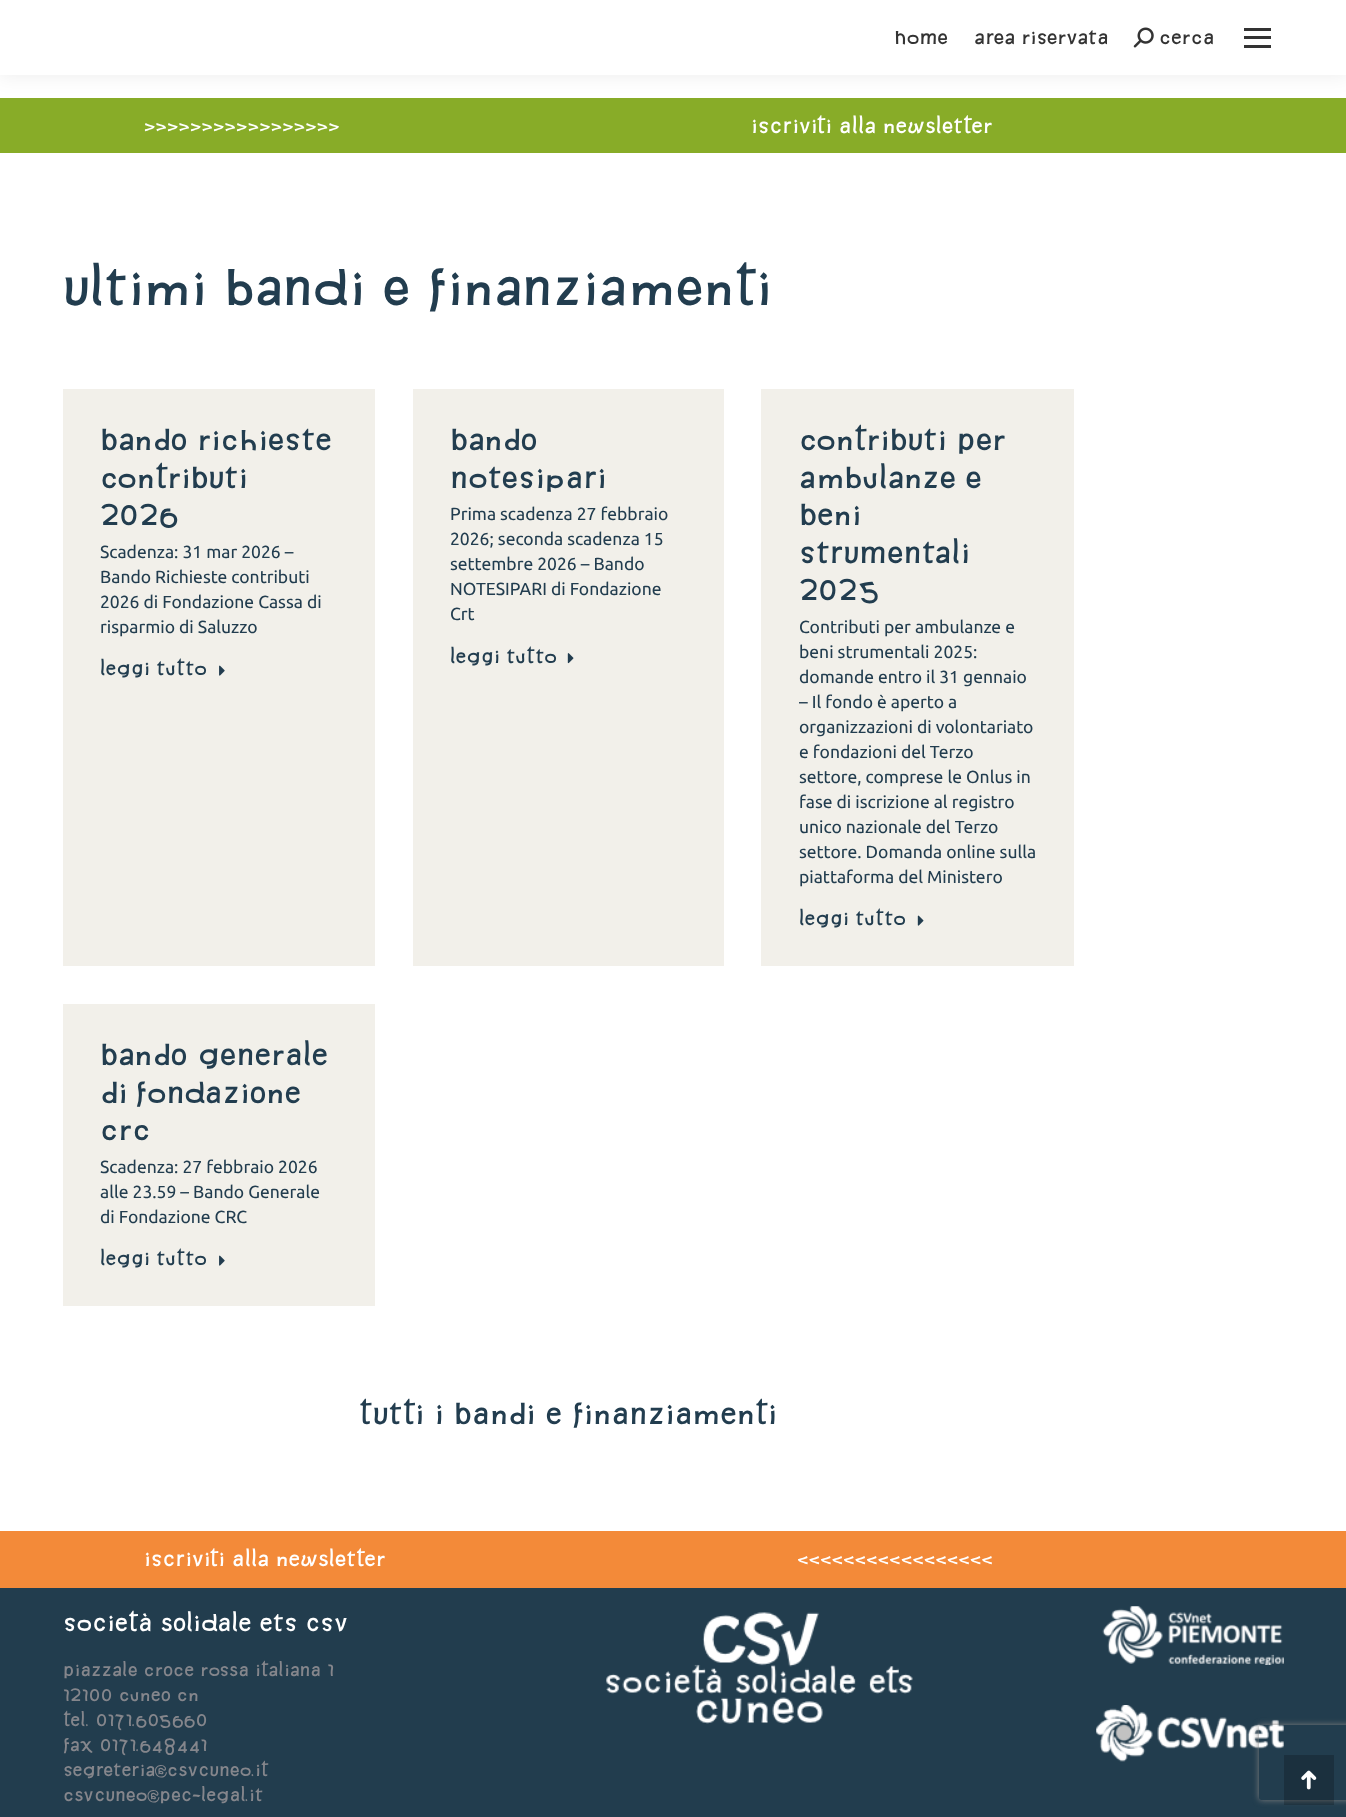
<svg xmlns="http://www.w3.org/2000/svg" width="1346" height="1817">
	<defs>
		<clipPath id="clip1"><path d="M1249 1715H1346V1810H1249ZM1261.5 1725H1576.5C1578 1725 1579 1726 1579 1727.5V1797.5C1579 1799 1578 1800 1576.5 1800H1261.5C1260 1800 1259 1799 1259 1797.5V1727.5C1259 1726 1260 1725 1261.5 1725Z" clip-rule="evenodd" /></clipPath>
	</defs>
	<rect width="100%" height="100%" fill="#FFFFFF" />
	<rect x="0" y="98" width="1346" height="55" fill="#88AC28" />
	<rect x="-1" y="-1" width="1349" height="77" fill="#000000" fill-opacity="0.07" filter="blur(9.5px)" />
	<rect x="0" y="0" width="1346" height="75" fill="#FFFFFF" />
	<g font-family="'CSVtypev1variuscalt'" font-size="16.25" font-weight="700" fill="#333333">
		<text x="895" y="44">home</text>
		<text x="974" y="44">Area riservata</text>
	</g>
	<image x="1133" y="27" width="21" height="21" href="assets/img1.png" />
	<text x="1159" y="44" font-family="'CSVtypev1variuscalt'" font-size="16.25" font-weight="700" fill="#333333">cerca</text>
	<rect x="1244" y="28" width="27" height="3" fill="#333333" />
	<rect x="1244" y="36" width="27" height="3" fill="#333333" />
	<rect x="1244" y="45" width="27" height="3" fill="#333333" />
	<g font-family="'CSVtypev1variuscalt'" font-size="17.5" font-weight="700" fill="#FFFFFF">
		<text x="144" y="133">&gt;&gt;&gt;&gt;&gt;&gt;&gt;&gt;&gt;&gt;&gt;&gt;&gt;&gt;&gt;&gt;&gt;</text>
		<text x="751" y="133">iscriviti alla newsletter</text>
	</g>
	<text x="63" y="305" font-family="'CSVtypev1variuscalt'" font-size="42.5" font-weight="700" fill="#223D4F">Ultimi bandi e finanziamenti</text>
	<rect x="63" y="389" width="312" height="577" fill="#F2F0EA" />
	<g font-family="'CSVtypev1variuscalt'" font-size="25" font-weight="700" fill="#223D4F">
		<text x="100" y="450">Bando Richieste</text>
		<text x="100" y="488">contributi</text>
		<text x="100" y="525">2026</text>
	</g>
	<g font-family="Ubuntu" font-size="17.5" fill="#223D4F">
		<text x="100" y="558">Scadenza: 31 mar 2026 –</text>
		<text x="100" y="583">Bando Richieste contributi</text>
		<text x="100" y="608">2026 di Fondazione Cassa di</text>
		<text x="100" y="633">risparmio di Saluzzo</text>
	</g>
	<text x="100" y="675" font-family="'CSVtypev1variuscalt'" font-size="16.25" font-weight="700" fill="#223D4F">Leggi tutto</text>
	<image x="219" y="665" width="6" height="11" href="assets/img2.png" />
	<rect x="413" y="389" width="311" height="577" fill="#F2F0EA" />
	<g font-family="'CSVtypev1variuscalt'" font-size="25" font-weight="700" fill="#223D4F">
		<text x="450" y="450">Bando</text>
		<text x="450" y="488">NOTESIPARI</text>
	</g>
	<g font-family="Ubuntu" font-size="17.5" fill="#223D4F">
		<text x="450" y="520">Prima scadenza 27 febbraio</text>
		<text x="450" y="545">2026; seconda scadenza 15</text>
		<text x="450" y="570">settembre 2026 – Bando</text>
		<text x="450" y="595">NOTESIPARI di Fondazione</text>
		<text x="450" y="620">Crt</text>
	</g>
	<text x="450" y="663" font-family="'CSVtypev1variuscalt'" font-size="16.25" font-weight="700" fill="#223D4F">Leggi tutto</text>
	<image x="567" y="653" width="7" height="11" href="assets/img3.png" />
	<rect x="761" y="389" width="313" height="577" fill="#F2F0EA" />
	<g font-family="'CSVtypev1variuscalt'" font-size="25" font-weight="700" fill="#223D4F">
		<text x="799" y="450">Contributi per</text>
		<text x="799" y="488" word-spacing="-1">ambulanze e</text>
		<text x="799" y="525">beni</text>
		<text x="799" y="563">strumentali</text>
		<text x="799" y="600">2025</text>
	</g>
	<g font-family="Ubuntu" font-size="17.5" fill="#223D4F">
		<text x="799" y="633">Contributi per ambulanze e</text>
		<text x="799" y="658">beni strumentali 2025:</text>
		<text x="799" y="683">domande entro il 31 gennaio</text>
		<text x="799" y="708">– Il fondo è aperto a</text>
		<text x="799" y="733">organizzazioni di volontariato</text>
		<text x="799" y="758">e fondazioni del Terzo</text>
		<text x="799" y="783">settore, comprese le Onlus in</text>
		<text x="799" y="808">fase di iscrizione al registro</text>
		<text x="799" y="833">unico nazionale del Terzo</text>
		<text x="799" y="858">settore. Domanda online sulla</text>
		<text x="799" y="883">piattaforma del Ministero</text>
	</g>
	<text x="799" y="925" font-family="'CSVtypev1variuscalt'" font-size="16.25" font-weight="700" fill="#223D4F">Leggi tutto</text>
	<image x="917" y="915" width="7" height="11" href="assets/img4.png" />
	<rect x="63" y="1004" width="312" height="302" fill="#F2F0EA" />
	<g font-family="'CSVtypev1variuscalt'" font-size="25" font-weight="700" fill="#223D4F">
		<text x="100" y="1065">Bando generale</text>
		<text x="100" y="1103" word-spacing="-2">di Fondazione</text>
		<text x="100" y="1140">Crc</text>
	</g>
	<g font-family="Ubuntu" font-size="17.5" fill="#223D4F">
		<text x="100" y="1173">Scadenza: 27 febbraio 2026</text>
		<text x="100" y="1198">alle 23.59 – Bando Generale</text>
		<text x="100" y="1223">di Fondazione CRC</text>
	</g>
	<text x="100" y="1265" font-family="'CSVtypev1variuscalt'" font-size="16.25" font-weight="700" fill="#223D4F">Leggi tutto</text>
	<image x="219" y="1255" width="6" height="11" href="assets/img2.png" />
	<text x="359" y="1424" font-family="'CSVtypev1variuscalt'" font-size="25" font-weight="700" fill="#223D4F">tutti i bandi e finanziamenti</text>
	<rect x="0" y="1531" width="1346" height="57" fill="#F38A39" />
	<g font-family="'CSVtypev1variuscalt'" font-size="17.5" font-weight="700" fill="#FFFFFF">
		<text x="144" y="1566">iscriviti alla newsletter</text>
		<text x="797" y="1566">&lt;&lt;&lt;&lt;&lt;&lt;&lt;&lt;&lt;&lt;&lt;&lt;&lt;&lt;&lt;&lt;&lt;</text>
	</g>
	<rect x="0" y="1588" width="1346" height="229" fill="#223D4E" />
	<text x="63" y="1631" font-family="'CSVtypev1variuscalt'" font-size="20" font-weight="700" fill="#FFFFFF">Società Solidale ets CSV</text>
	<g font-family="'CSVtypev1variuscalt'" font-size="15" font-weight="700" fill="#85868C">
		<text x="63" y="1676">Piazzale Croce Rossa Italiana 1</text>
		<text x="63" y="1701">12100 Cuneo CN</text>
		<text x="63" y="1726">Tel. 0171.605660</text>
		<text x="63" y="1751">Fax 0171.648441</text>
		<text x="63" y="1776">segreteria@csvcuneo.it</text>
		<text x="63" y="1801">csvcuneo@pec-legal.it</text>
	</g>
	<image x="606" y="1612" width="307" height="112" href="assets/img5.png" />
	<image x="1102" y="1606" width="182" height="59" href="assets/img6.png" />
	<image x="1096" y="1705" width="188" height="57" href="assets/img7.png" />
	<g clip-path="url(#clip1)">
		<rect x="1259" y="1725" width="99" height="75" rx="2.5" fill="#808080" filter="blur(3px)" />
	</g>
	<rect x="1284" y="1755" width="50" height="50" fill="#000000" fill-opacity="0.2" />
	<image x="1301" y="1770" width="16" height="20" href="assets/img8.png" />
</svg>
